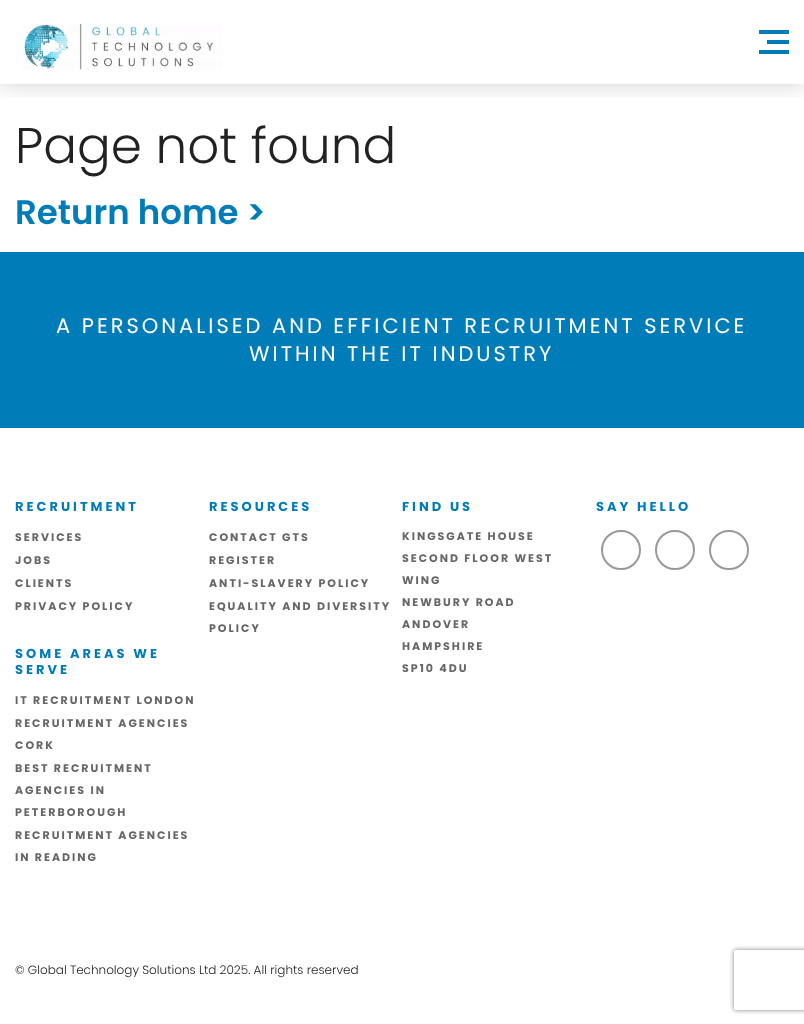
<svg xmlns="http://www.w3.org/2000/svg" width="804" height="1024">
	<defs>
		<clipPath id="clip1"><rect x="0" y="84" width="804" height="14" /></clipPath>
		<clipPath id="clip2"><path d="M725 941H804V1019H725ZM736 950H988C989 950 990 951 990 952V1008C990 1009 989 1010 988 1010H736C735 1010 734 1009 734 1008V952C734 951 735 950 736 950Z" clip-rule="evenodd" /></clipPath>
	</defs>
	<rect width="100%" height="100%" fill="#FFFFFF" />
	<g clip-path="url(#clip1)">
		<rect x="0" y="3" width="804" height="84" fill="#000000" fill-opacity="0.15" filter="blur(10px)" />
	</g>
	<image x="23" y="23" width="200" height="47" href="assets/img1.png" />
	<rect x="759" y="30" width="30" height="4" fill="#007DB8" />
	<rect x="767" y="40" width="22" height="4" fill="#007DB8" />
	<rect x="759" y="50" width="30" height="4" fill="#007DB8" />
	<text x="15" y="163" font-family="Poppins" font-size="50" font-weight="300" fill="#222222">Page not found</text>
	<text x="15" y="224" font-family="Poppins" font-size="34" font-weight="600" fill="#007DB8">Return home &gt;</text>
	<rect x="0" y="252" width="804" height="176" fill="#007DB8" />
	<g font-family="Poppins" font-size="21" letter-spacing="3" fill="#FFFFFF">
		<text x="56" y="333">A PERSONALISED AND EFFICIENT RECRUITMENT SERVICE</text>
		<text x="249" y="361">WITHIN THE IT INDUSTRY</text>
	</g>
	<text x="15" y="511" font-family="Poppins" font-size="13" font-weight="700" letter-spacing="3" fill="#007DB8">RECRUITMENT</text>
	<g font-family="Poppins" font-size="11" font-weight="700" letter-spacing="2" fill="#666666">
		<text x="15" y="541">SERVICES</text>
		<text x="15" y="564">JOBS</text>
		<text x="15" y="587">CLIENTS</text>
		<text x="15" y="610">PRIVACY POLICY</text>
	</g>
	<g font-family="Poppins" font-size="13" font-weight="700" letter-spacing="3" fill="#007DB8">
		<text x="15" y="658">SOME AREAS WE</text>
		<text x="15" y="674">SERVE</text>
	</g>
	<g font-family="Poppins" font-size="11" font-weight="700" letter-spacing="2" fill="#666666">
		<text x="15" y="704">IT RECRUITMENT LONDON</text>
		<text x="15" y="727">RECRUITMENT AGENCIES</text>
		<text x="15" y="749">CORK</text>
		<text x="15" y="772">BEST RECRUITMENT</text>
		<text x="15" y="794">AGENCIES IN</text>
		<text x="15" y="816">PETERBOROUGH</text>
		<text x="15" y="839">RECRUITMENT AGENCIES</text>
		<text x="15" y="861">IN READING</text>
	</g>
	<text x="209" y="511" font-family="Poppins" font-size="13" font-weight="700" letter-spacing="3" fill="#007DB8">RESOURCES</text>
	<g font-family="Poppins" font-size="11" font-weight="700" letter-spacing="2" fill="#666666">
		<text x="209" y="541">CONTACT GTS</text>
		<text x="209" y="564">REGISTER</text>
		<text x="209" y="587">ANTI-SLAVERY POLICY</text>
		<text x="209" y="610">EQUALITY AND DIVERSITY</text>
		<text x="209" y="632">POLICY</text>
	</g>
	<text x="402" y="511" font-family="Poppins" font-size="13" font-weight="700" letter-spacing="3" fill="#007DB8">FIND US</text>
	<g font-family="Poppins" font-size="11" font-weight="700" letter-spacing="2" fill="#666666">
		<text x="402" y="540">KINGSGATE HOUSE</text>
		<text x="402" y="562">SECOND FLOOR WEST</text>
		<text x="402" y="584">WING</text>
		<text x="402" y="606">NEWBURY ROAD</text>
		<text x="402" y="628">ANDOVER</text>
		<text x="402" y="650">HAMPSHIRE</text>
		<text x="402" y="672">SP10 4DU</text>
	</g>
	<text x="596" y="511" font-family="Poppins" font-size="13" font-weight="700" letter-spacing="3" fill="#007DB8">SAY HELLO</text>
	<circle cx="621" cy="550" r="19" fill="none" stroke="#999999" stroke-width="2" />
	<circle cx="675" cy="550" r="19" fill="none" stroke="#999999" stroke-width="2" />
	<circle cx="729" cy="550" r="19" fill="none" stroke="#999999" stroke-width="2" />
	<text x="15" y="974" font-family="Poppins" font-size="12" font-weight="300" fill="#222222">© Global Technology Solutions Ltd 2025. All rights reserved</text>
	<g clip-path="url(#clip2)">
		<rect x="734" y="950" width="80" height="60" rx="2" fill="#808080" filter="blur(2.5px)" />
	</g>
</svg>
